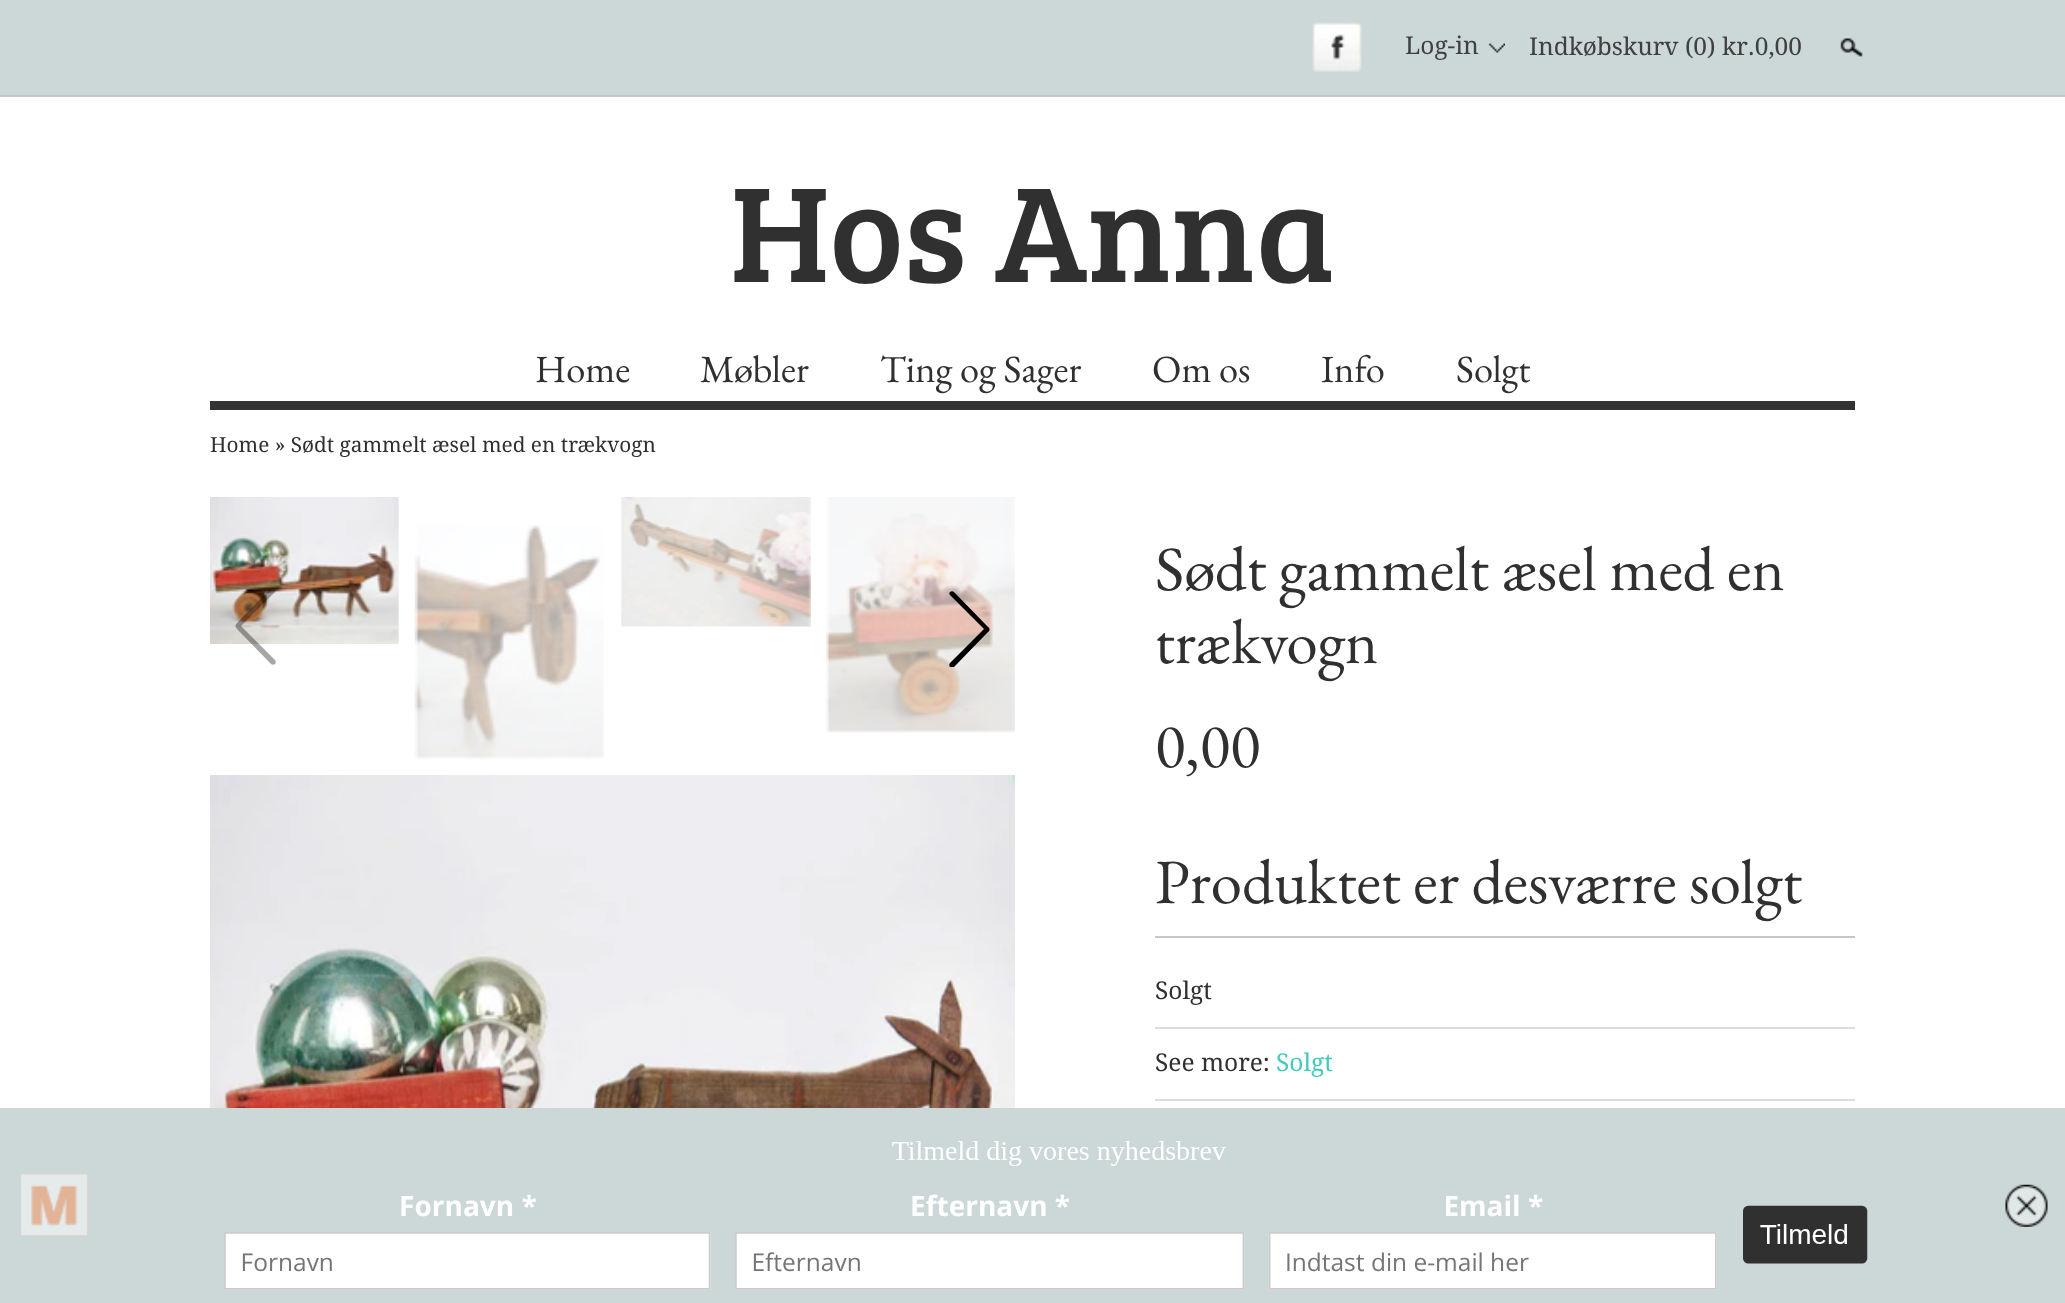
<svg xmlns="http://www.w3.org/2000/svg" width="2065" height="1303">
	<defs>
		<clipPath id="clip1"><rect x="217" y="590" width="77" height="77" /></clipPath>
		<clipPath id="clip2"><rect x="931" y="590" width="77" height="77" /></clipPath>
	</defs>
	<rect width="100%" height="100%" fill="#CCD7D7" />
	<image x="1312" y="22" width="50" height="50" href="assets/img1.png" />
	<image x="1488" y="43" width="17" height="10" href="assets/img2.png" />
	<g font-family="Droid Serif" font-size="24.5" fill="#404040">
		<text x="1405" y="54">Log-in</text>
		<text x="1529" y="55">Indkøbskurv (0) kr.0,00</text>
	</g>
	<image x="1840" y="38" width="23" height="19" href="assets/img3.png" />
	<rect x="0" y="97" width="2065" height="1011" fill="#FFFFFF" />
	<rect x="0" y="95" width="2065" height="2" fill="#C4C9C5" />
	<text x="730" y="282" font-family="Bree Serif" font-size="140" fill="#303030">Hos Anna</text>
	<rect x="210" y="401" width="1645" height="9" fill="#333333" />
	<g font-family="EB Garamond" font-size="38.5" fill="#303030">
		<text x="535" y="382">Home</text>
		<text x="700" y="382">Møbler</text>
		<text x="880" y="382">Ting og Sager</text>
		<text x="1152" y="382">Om os</text>
		<text x="1321" y="382">Info</text>
		<text x="1456" y="382">Solgt</text>
	</g>
	<text x="210" y="452" font-family="Droid Serif" font-size="20.8" fill="#303030">Home » Sødt gammelt æsel med en trækvogn</text>
	<image x="210" y="497" width="189" height="147" href="assets/img4.png" />
	<image x="414" y="525" width="190" height="235" href="assets/img5.png" />
	<image x="621" y="497" width="190" height="130" href="assets/img6.png" />
	<image x="826" y="497" width="189" height="236" href="assets/img7.png" />
	<g clip-path="url(#clip1)">
		<path d="M275 588C276 589 276 591 275 592L241 626L275 660C276 661 276 663 275 664C274 665 272 665 271 664L237 629C235 627 235 625 237 623L271 588C272 587 274 587 275 588Z" fill="#000000" fill-opacity="0.35" />
	</g>
	<g clip-path="url(#clip2)">
		<path d="M950 667C949 666 949 664 950 663L984 629L950 595C949 594 949 593 950 592C951 591 953 591 954 592L988 627C990 628 990 631 988 632L954 667C953 668 951 668 950 667Z" fill="#000000" />
	</g>
	<image x="210" y="775" width="805" height="333" href="assets/img8.png" />
	<g font-family="EB Garamond" font-size="63" fill="#303030">
		<text x="1155" y="590">Sødt gammelt æsel med en</text>
		<text x="1155" y="663">trækvogn</text>
		<text x="1155" y="767">0,00</text>
	</g>
	<rect x="1155" y="936" width="700" height="2" fill="#C4C9C5" />
	<text x="1155" y="903" font-family="EB Garamond" font-size="63" fill="#303030">Produktet er desværre solgt</text>
	<rect x="1155" y="1027" width="700" height="2" fill="#DDDDDD" />
	<text x="1155" y="999" font-family="Droid Serif" font-size="24.5" fill="#303030">Solgt</text>
	<rect x="1155" y="1099" width="700" height="2" fill="#DDDDDD" />
	<text x="1155" y="1071" font-family="Droid Serif" font-size="24.5" fill="#303030">See more:</text>
	<text x="1276" y="1071" font-family="Droid Serif" font-size="24.5" fill="#42CABD">Solgt</text>
	<image x="0" y="1108" width="2065" height="195" href="assets/img9.png" />
</svg>
